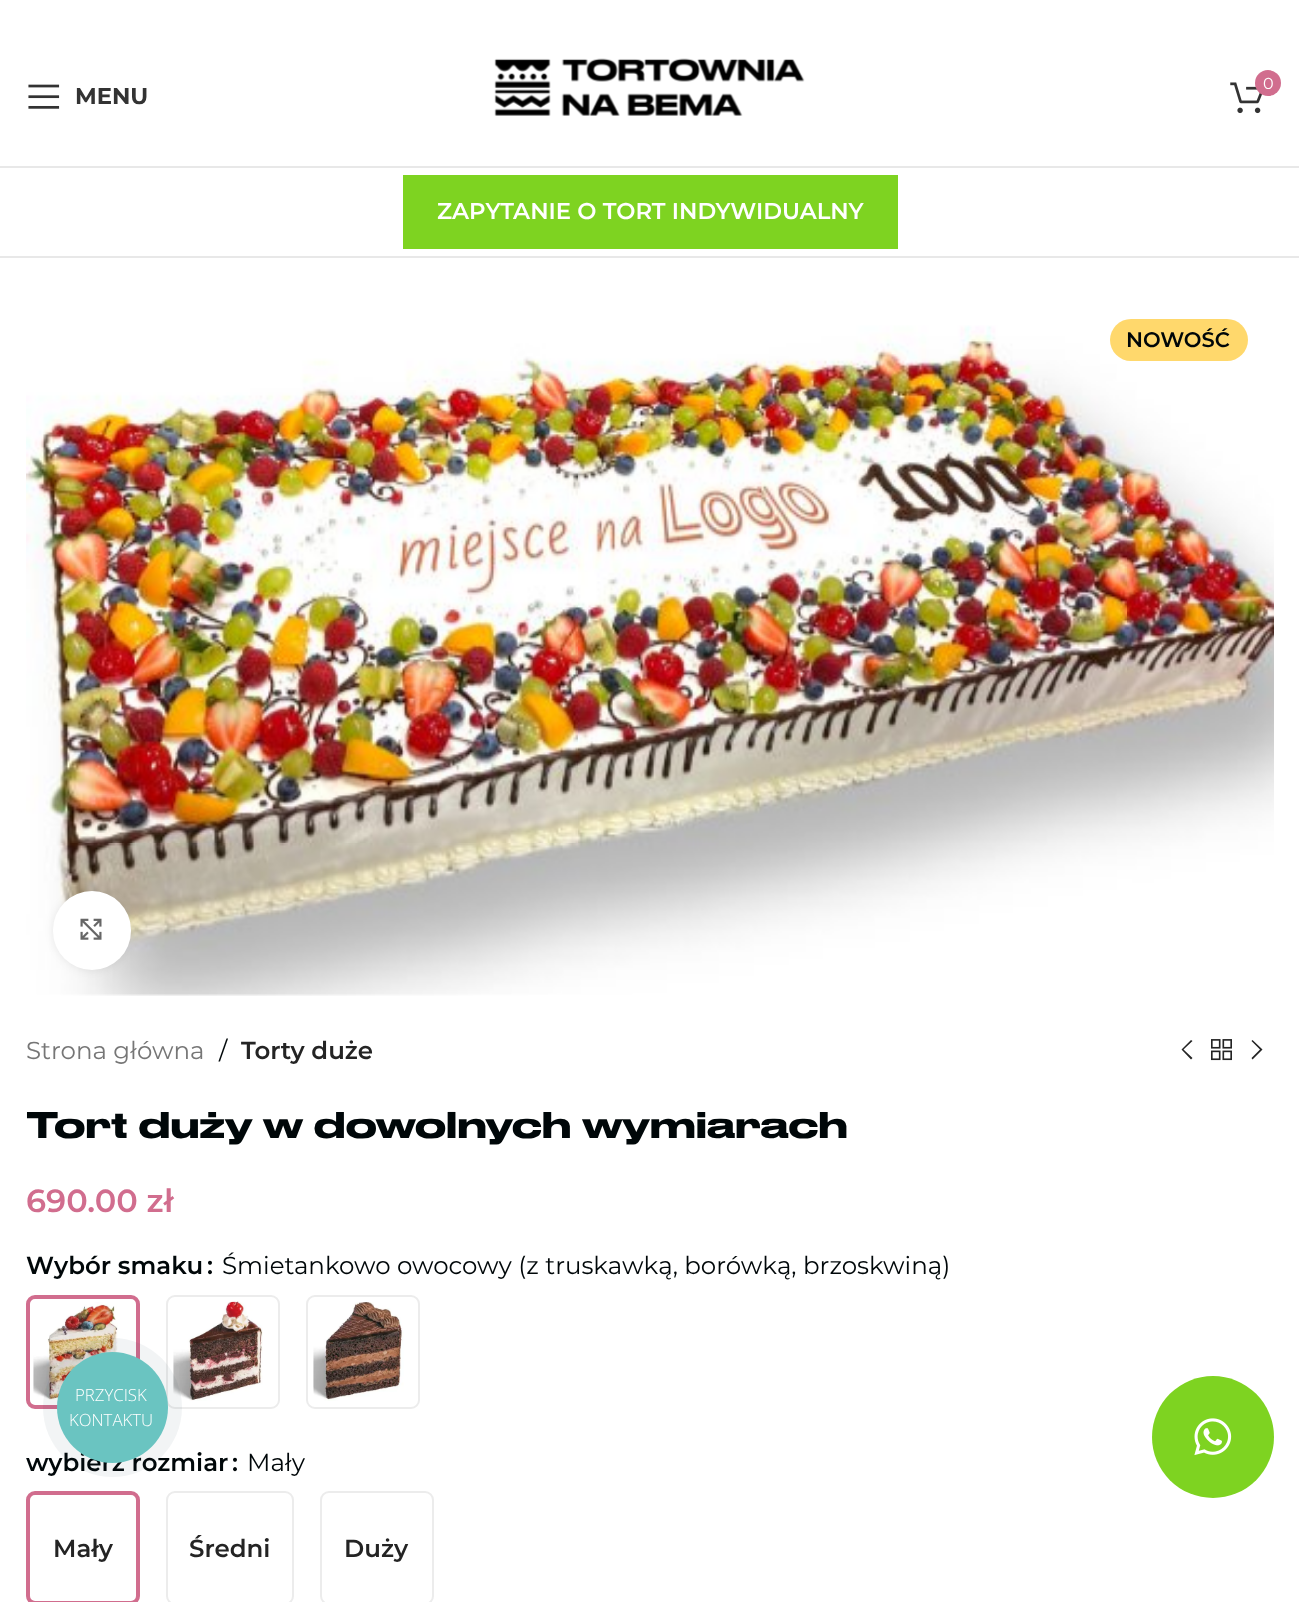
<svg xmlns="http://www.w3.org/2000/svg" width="1299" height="1602">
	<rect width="100%" height="100%" fill="#FFFFFF" />
	<rect x="0" y="166" width="1299" height="2" fill="#E8E8E8" />
	<image x="494" y="58" width="311" height="58" href="assets/img1.png" />
	<image x="1230" y="82" width="33" height="32" href="assets/img2.png" />
	<circle cx="1268" cy="83" r="13" fill="#D16D8E" />
	<text x="1263" y="89" font-family="Montserrat" font-size="16" fill="#FFFFFF">0</text>
	<image x="28" y="84" width="32" height="25" href="assets/img3.png" />
	<text x="75" y="104" font-family="Montserrat" font-size="22.75" font-weight="700" fill="#333333">MENU</text>
	<rect x="0" y="256" width="1299" height="2" fill="#E8E8E8" />
	<rect x="403" y="175" width="495" height="74" fill="#7ED321" />
	<text x="437" y="219" font-family="Montserrat" font-size="22.75" font-weight="600" fill="#FFFFFF">ZAPYTANIE O TORT INDYWIDUALNY</text>
	<image x="26" y="325" width="1248" height="671" href="assets/img4.png" />
	<rect x="1110" y="319" width="138" height="42" rx="21" fill="#FFD86C" />
	<text x="1126" y="347" font-family="Montserrat" font-size="21" font-weight="600" fill="#000709">NOWOŚĆ</text>
	<rect x="53" y="891" width="78" height="79" rx="39" fill="#000000" fill-opacity="0.08" filter="blur(4.5px)" />
	<rect x="53" y="891" width="78" height="79" rx="39" fill="#FFFFFF" />
	<image x="80" y="918" width="22" height="22" href="assets/img5.png" />
	<text x="26" y="1059" font-family="Montserrat" font-size="24.5" fill="#767676">Strona główna</text>
	<text x="219" y="1059" font-family="Montserrat" font-size="24.5" fill="#000709">/</text>
	<text x="241" y="1059" font-family="Montserrat" font-size="24.5" font-weight="600" fill="#242424">Torty duże</text>
	<path d="M1192.5 1041L1191 1040L1181.5 1049.5L1191 1059.5L1192.5 1058L1183.5 1049.5Z" fill="#242424" />
	<image x="1211" y="1039" width="21" height="22" href="assets/img6.png" />
	<path d="M1251.5 1041L1260 1049.5L1251.5 1058L1252.5 1059.5L1262.5 1049.5L1252.5 1040Z" fill="#242424" />
	<text x="26" y="1138" font-family="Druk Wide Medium" font-size="35" font-weight="500" fill="#000709">Tort duży w dowolnych wymiarach</text>
	<text x="26" y="1212" font-family="Montserrat" font-size="32" font-weight="600" fill="#D16D8E">690.00 zł</text>
	<g font-family="Montserrat" font-size="24.5" font-weight="600" fill="#000709">
		<text x="26" y="1274">Wybór smaku</text>
		<text x="207" y="1274">:</text>
	</g>
	<text x="222" y="1274" font-family="Montserrat" font-size="24.5" fill="#000709">Śmietankowo owocowy (z truskawką, borówką, brzoskwiną)</text>
	<rect x="28" y="1297" width="110" height="110" rx="7" fill="none" stroke="#D16D8E" stroke-width="4" />
	<image x="33" y="1302" width="85" height="98" href="assets/img7.png" />
	<rect x="167" y="1296" width="112" height="112" rx="8" fill="none" stroke="#ECECEC" stroke-width="2" />
	<image x="173" y="1301" width="90" height="100" href="assets/img8.png" />
	<rect x="307" y="1296" width="112" height="112" rx="8" fill="none" stroke="#ECECEC" stroke-width="2" />
	<image x="313" y="1302" width="91" height="99" href="assets/img9.png" />
	<g font-family="Montserrat" font-size="24.5" font-weight="600" fill="#000709">
		<text x="26" y="1471">wybierz rozmiar</text>
		<text x="232" y="1471">:</text>
	</g>
	<text x="247" y="1471" font-family="Montserrat" font-size="24.5" fill="#000709">Mały</text>
	<rect x="28" y="1493" width="110" height="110" rx="7" fill="none" stroke="#D16D8E" stroke-width="4" />
	<text x="53" y="1557" font-family="Montserrat" font-size="24.5" font-weight="600" fill="#242424">Mały</text>
	<rect x="167" y="1492" width="126" height="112" rx="8" fill="none" stroke="#ECECEC" stroke-width="2" />
	<text x="189" y="1557" font-family="Montserrat" font-size="24.5" font-weight="600" fill="#242424">Średni</text>
	<rect x="321" y="1492" width="112" height="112" rx="8" fill="none" stroke="#ECECEC" stroke-width="2" />
	<text x="344" y="1557" font-family="Montserrat" font-size="24.5" font-weight="600" fill="#242424">Duży</text>
	<circle cx="112.5" cy="1407.5" r="69.5" fill="#2A405D" fill-opacity="0.06" />
	<circle cx="112.5" cy="1407.5" r="55.5" fill="#6AC4C1" />
	<g font-family="Open Sans" font-size="16.75" font-weight="300" fill="#FFFFFF">
		<text x="75" y="1401">PRZYCISK</text>
		<text x="69" y="1426">KONTAKTU</text>
	</g>
	<circle cx="1213" cy="1437" r="61" fill="#7ED321" />
	<image x="1194" y="1418" width="38" height="38" href="assets/img10.png" />
</svg>
